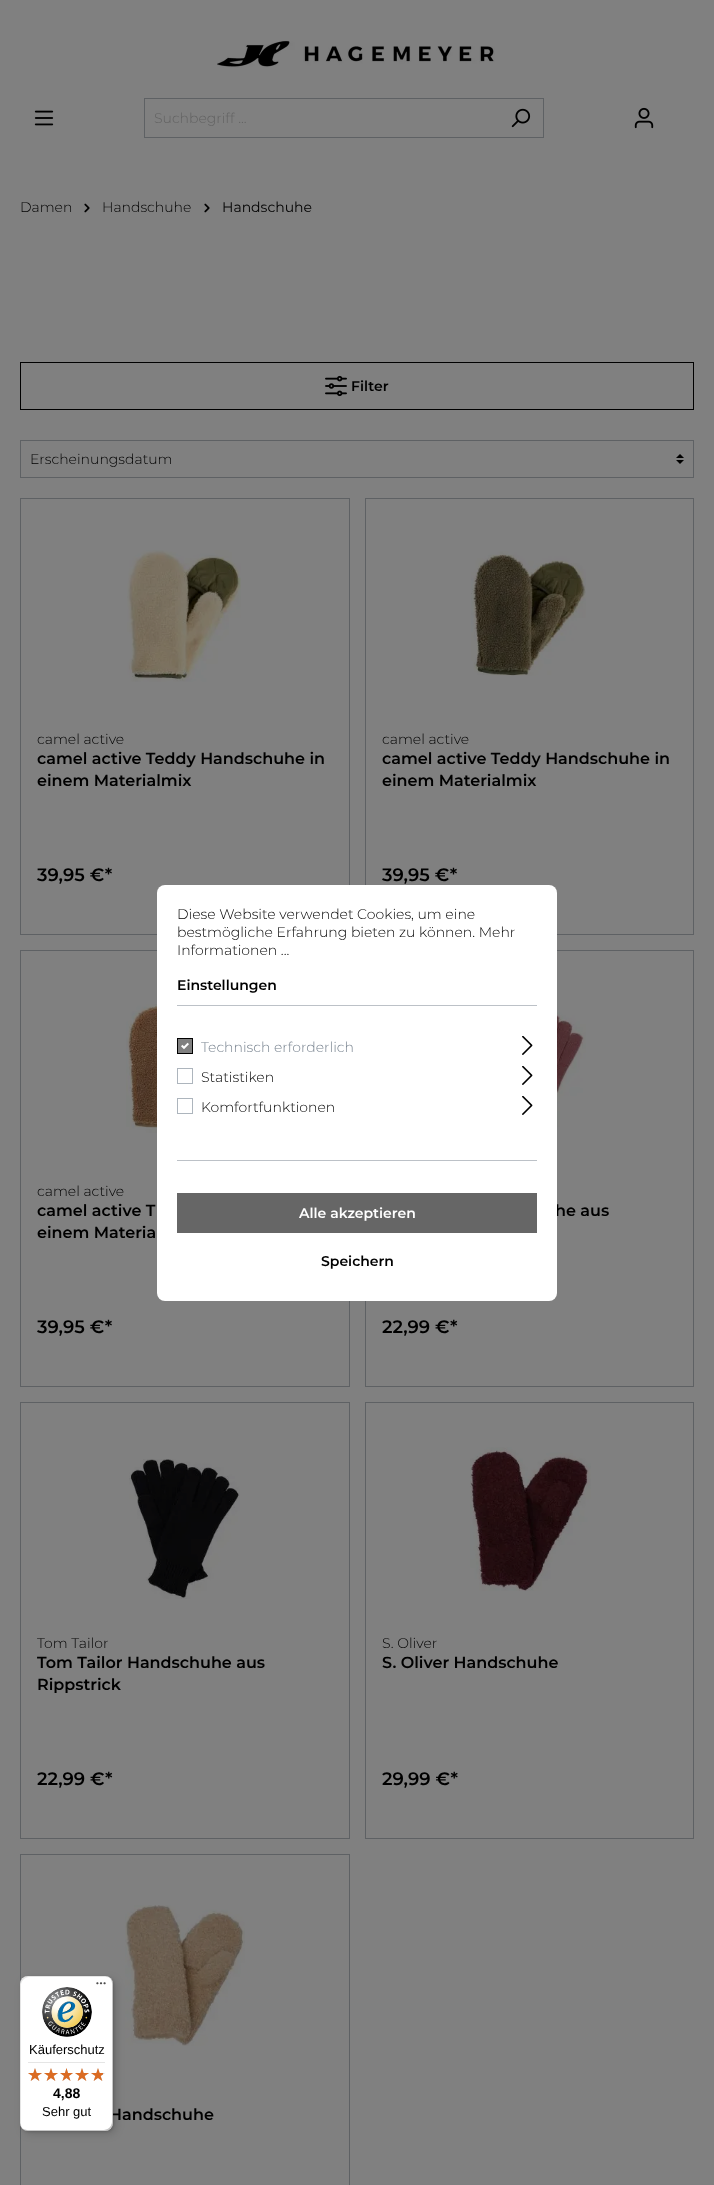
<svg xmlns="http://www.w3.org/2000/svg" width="714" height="2185">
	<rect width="100%" height="100%" fill="#808080" />
	<image x="217" y="40" width="278" height="28" href="assets/img1.png" />
	<image x="34" y="110" width="20" height="16" href="assets/img2.png" />
	<rect x="144" y="98" width="400" height="1" fill="#5E6164" />
	<rect x="144" y="137" width="354" height="1" fill="#5E6164" />
	<rect x="144" y="98" width="1" height="40" fill="#5E6164" />
	<text x="154" y="123" font-family="Montserrat" font-size="14" font-weight="300" fill="#626262">Suchbegriff ...</text>
	<rect x="543" y="98" width="1" height="40" fill="#5E6164" />
	<rect x="497" y="137" width="47" height="1" fill="#5E6164" />
	<image x="511" y="108" width="20" height="20" href="assets/img3.png" />
	<image x="634" y="107" width="20" height="22" href="assets/img4.png" />
	<text x="20" y="212" font-family="Montserrat" font-size="14" font-weight="300" fill="#000000">Damen</text>
	<image x="84" y="203" width="6" height="10" href="assets/img5.png" />
	<text x="102" y="212" font-family="Montserrat" font-size="14" font-weight="300" fill="#000000">Handschuhe</text>
	<image x="204" y="203" width="6" height="10" href="assets/img5.png" />
	<text x="222" y="212" font-family="Montserrat" font-size="14" fill="#000000">Handschuhe</text>
	<rect x="20.5" y="362.5" width="673" height="47" fill="none" stroke="#000000" />
	<image x="325" y="375" width="22" height="22" href="assets/img6.png" />
	<text x="351" y="391" font-family="Montserrat" font-size="14" font-weight="600" fill="#000000">Filter</text>
	<image x="676" y="454" width="8" height="10" href="assets/img7.png" />
	<rect x="20.5" y="440.5" width="673" height="37" fill="none" stroke="#5E6164" />
	<text x="30" y="464" font-family="Montserrat" font-size="14" font-weight="300" fill="#000000">Erscheinungsdatum</text>
	<rect x="20.5" y="498.5" width="329" height="436" fill="none" stroke="#5E6164" />
	<image x="127" y="550" width="114" height="132" href="assets/img8.png" />
	<text x="37" y="744" font-family="Montserrat" font-size="14" font-weight="300" fill="#000000">camel active</text>
	<g font-family="Montserrat" font-size="16" font-weight="600" fill="#000000">
		<text x="37" y="764">camel active Teddy Handschuhe in</text>
		<text x="37" y="786">einem Materialmix</text>
	</g>
	<text x="37" y="881" font-family="Montserrat" font-size="18" font-weight="600" fill="#000000">39,95 €*</text>
	<rect x="365.5" y="498.5" width="328" height="436" fill="none" stroke="#5E6164" />
	<image x="471" y="551" width="115" height="125" href="assets/img9.png" />
	<text x="382" y="744" font-family="Montserrat" font-size="14" font-weight="300" fill="#000000">camel active</text>
	<g font-family="Montserrat" font-size="16" font-weight="600" fill="#000000">
		<text x="382" y="764">camel active Teddy Handschuhe in</text>
		<text x="382" y="786">einem Materialmix</text>
	</g>
	<text x="382" y="881" font-family="Montserrat" font-size="18" font-weight="600" fill="#000000">39,95 €*</text>
	<rect x="20.5" y="950.5" width="329" height="436" fill="none" stroke="#5E6164" />
	<image x="126" y="1004" width="31" height="129" href="assets/img10.png" />
	<text x="37" y="1196" font-family="Montserrat" font-size="14" font-weight="300" fill="#000000">camel active</text>
	<g font-family="Montserrat" font-size="16" font-weight="600" fill="#000000">
		<text x="37" y="1216">camel active T</text>
		<text x="37" y="1238">einem Materia</text>
	</g>
	<text x="37" y="1333" font-family="Montserrat" font-size="18" font-weight="600" fill="#000000">39,95 €*</text>
	<rect x="365.5" y="950.5" width="328" height="436" fill="none" stroke="#5E6164" />
	<image x="557" y="1001" width="29" height="149" href="assets/img11.png" />
	<text x="555" y="1216" font-family="Montserrat" font-size="16" font-weight="600" fill="#000000">he aus</text>
	<text x="382" y="1333" font-family="Montserrat" font-size="18" font-weight="600" fill="#000000">22,99 €*</text>
	<rect x="20.5" y="1402.5" width="329" height="436" fill="none" stroke="#5E6164" />
	<image x="129" y="1459" width="111" height="140" href="assets/img12.png" />
	<text x="37" y="1648" font-family="Montserrat" font-size="14" font-weight="300" fill="#000000">Tom Tailor</text>
	<g font-family="Montserrat" font-size="16" font-weight="600" fill="#000000">
		<text x="37" y="1668">Tom Tailor Handschuhe aus</text>
		<text x="37" y="1690">Rippstrick</text>
	</g>
	<text x="37" y="1785" font-family="Montserrat" font-size="18" font-weight="600" fill="#000000">22,99 €*</text>
	<rect x="365.5" y="1402.5" width="328" height="436" fill="none" stroke="#5E6164" />
	<image x="470" y="1447" width="121" height="144" href="assets/img13.png" />
	<text x="382" y="1648" font-family="Montserrat" font-size="14" font-weight="300" fill="#000000">S. Oliver</text>
	<text x="382" y="1668" font-family="Montserrat" font-size="16" font-weight="600" fill="#000000">S. Oliver Handschuhe</text>
	<text x="382" y="1785" font-family="Montserrat" font-size="18" font-weight="600" fill="#000000">29,99 €*</text>
	<rect x="20.5" y="1854.5" width="329" height="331" fill="none" stroke="#5E6164" />
	<image x="125" y="1905" width="120" height="141" href="assets/img14.png" />
	<text x="109" y="2120" font-family="Montserrat" font-size="16" font-weight="600" fill="#000000">Handschuhe</text>
	<rect x="157" y="885" width="400" height="416" rx="8" fill="#FFFFFF" />
	<rect x="177" y="1005" width="360" height="1" fill="#BCC1C7" />
	<g font-family="Montserrat" font-size="14" font-weight="300" fill="#000000">
		<text x="177" y="919">Diese Website verwendet Cookies, um eine</text>
		<text x="177" y="937">bestmögliche Erfahrung bieten zu können. Mehr</text>
		<text x="177" y="955">Informationen ...</text>
	</g>
	<text x="177" y="990" font-family="Montserrat" font-size="14" font-weight="600" fill="#000000">Einstellungen</text>
	<rect x="177" y="1160" width="360" height="1" fill="#BCC1C7" />
	<rect x="177.5" y="1038.5" width="15" height="15" fill="#808080" stroke="#000000" />
	<text x="201" y="1052" font-family="Montserrat" font-size="14" font-weight="300" fill="#798490">Technisch erforderlich</text>
	<image x="181" y="1042" width="8" height="8" href="assets/img15.png" />
	<image x="522" y="1036" width="11" height="19" href="assets/img16.png" />
	<rect x="177.5" y="1068.5" width="15" height="15" fill="none" stroke="#ADB5BD" />
	<text x="201" y="1082" font-family="Montserrat" font-size="14" font-weight="300" fill="#000000">Statistiken</text>
	<image x="522" y="1066" width="11" height="19" href="assets/img16.png" />
	<rect x="177.5" y="1098.5" width="15" height="15" fill="none" stroke="#ADB5BD" />
	<text x="201" y="1112" font-family="Montserrat" font-size="14" font-weight="300" fill="#000000">Komfortfunktionen</text>
	<image x="522" y="1096" width="11" height="19" href="assets/img16.png" />
	<rect x="177" y="1193" width="360" height="40" fill="#666666" />
	<text x="299" y="1218" font-family="Montserrat" font-size="14" font-weight="600" fill="#FFFFFF">Alle akzeptieren</text>
	<text x="321" y="1266" font-family="Montserrat" font-size="14" font-weight="600" fill="#000000">Speichern</text>
	<rect x="23" y="1979" width="93" height="155" rx="8" fill="#000000" fill-opacity="0.15" filter="blur(4px)" />
	<rect x="21" y="1977" width="93" height="155" rx="8" fill="#000000" fill-opacity="0.15" filter="blur(1px)" />
	<rect x="20" y="1976" width="93" height="155" rx="8" fill="#FFFFFF" />
	<path d="M29 1977H106C108 1977 110 1978 112 1980C110 1978 108 1976 105 1976H28C24 1976 20 1980 20 1984V2123C20 2126 22 2128 24 2130C22 2128 21 2126 21 2124V1985C21 1981 25 1977 29 1977Z" fill="#000000" fill-opacity="0.1" />
	<path d="M21 2127C23 2129 25 2131 28 2131H105C109 2131 113 2127 113 2123V1984C113 1981 111 1979 109 1977C111 1979 112 1981 112 1983V2122C112 2126 108 2130 104 2130H27C25 2130 23 2129 21 2127Z" fill="#000000" fill-opacity="0.2" />
	<path d="M22 2128C23 2130 26 2131 28 2131H105C109 2131 113 2127 113 2123V1984C113 1982 112 1979 110 1978C111 1979 112 1981 112 1983V2122C112 2127 109 2130 104 2130H27C25 2130 23 2129 22 2128Z" fill="#323232" fill-opacity="0.2" />
	<path d="M112 1984C112 1979 109 1976 104 1976H105C109 1976 113 1980 113 1984V2123C113 2127 109 2131 105 2131H28C24 2131 20 2127 20 2123V2122C20 2127 23 2130 28 2130H104C109 2130 112 2127 112 2122Z" fill="#FFFFFF" fill-opacity="0.3" />
	<image x="96" y="1982" width="10" height="3" href="assets/img17.png" />
	<image x="42" y="1987" width="50" height="50" href="assets/img18.png" />
	<text x="29" y="2054" font-family="Liberation Sans" font-size="13" fill="#000000">Käuferschutz</text>
	<rect x="28" y="2062" width="77" height="1" fill="#E5E5E5" />
	<image x="28" y="2068" width="14" height="13" href="assets/img19.png" />
	<image x="44" y="2068" width="14" height="13" href="assets/img19.png" />
	<image x="60" y="2068" width="13" height="13" href="assets/img20.png" />
	<image x="75" y="2068" width="14" height="13" href="assets/img19.png" />
	<image x="91" y="2068" width="14" height="13" href="assets/img19.png" />
	<image x="28" y="2068" width="14" height="13" href="assets/img21.png" />
	<image x="44" y="2068" width="14" height="13" href="assets/img21.png" />
	<image x="60" y="2068" width="13" height="13" href="assets/img22.png" />
	<image x="75" y="2068" width="14" height="13" href="assets/img21.png" />
	<image x="91" y="2068" width="12" height="13" href="assets/img23.png" />
	<text x="53" y="2098" font-family="Liberation Sans" font-size="14" font-weight="700" fill="#000000">4,88</text>
	<text x="42" y="2116" font-family="Liberation Sans" font-size="13" fill="#000000">Sehr gut</text>
</svg>
